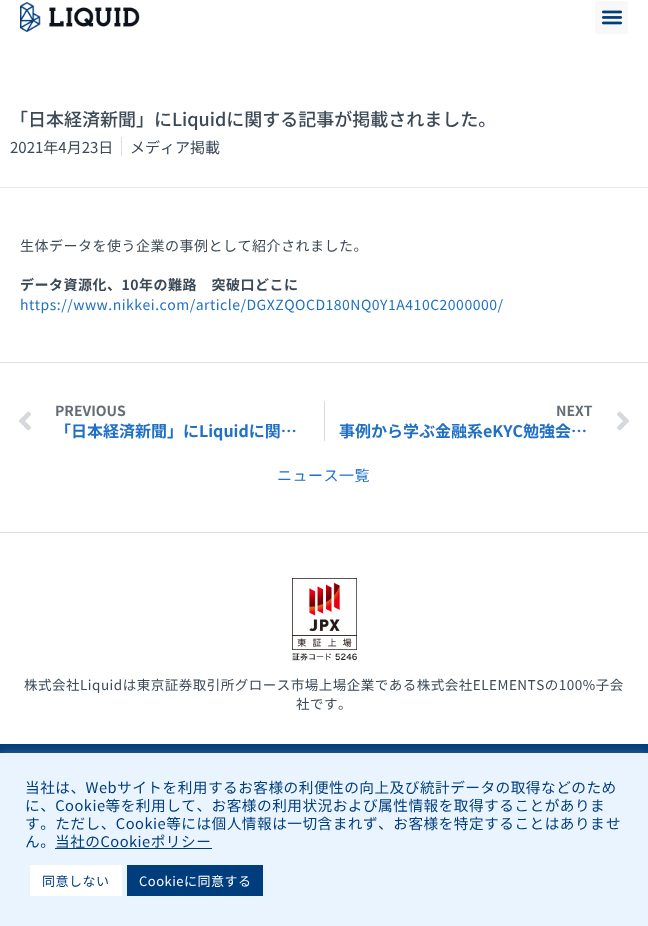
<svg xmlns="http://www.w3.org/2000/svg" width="648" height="926">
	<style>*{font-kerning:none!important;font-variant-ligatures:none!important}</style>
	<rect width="100%" height="100%" fill="#FFFFFF" />
	<image x="20" y="2" width="120" height="30" href="assets/img1.png" />
	<rect x="595" y="1" width="33" height="33" rx="3" fill="#F8F8F8" />
	<image x="601" y="10" width="22" height="15" href="assets/img2.png" />
	<rect x="0" y="187" width="648" height="1" fill="#E9E9E9" />
	<text x="10" y="126" font-family="Noto Sans JP" font-size="18" font-weight="500" fill="#3C4956">「日本経済新聞」にLiquidに関する記事が掲載されました。</text>
	<text x="10" y="153" font-family="Noto Sans JP" font-size="15" fill="#3C4956">2021年4月23日</text>
	<rect x="121" y="137" width="1" height="19" fill="#DDDDDD" />
	<text x="130" y="153" font-family="Noto Sans JP" font-size="15" fill="#3C4956">メディア掲載</text>
	<text x="20" y="251" font-family="Noto Sans JP" font-size="14" letter-spacing="0.5" fill="#3C4956">生体データを使う企業の事例として紹介されました。</text>
	<text x="20" y="290" font-family="Noto Sans JP" font-size="14" font-weight="700" letter-spacing="0.5" fill="#3C4956">データ資源化、10年の難路　突破口どこに</text>
	<text x="20" y="310" font-family="Noto Sans JP" font-size="14" letter-spacing="0.5" fill="#2070C5">https://www.nikkei.com/article/DGXZQOCD180NQ0Y1A410C2000000/</text>
	<rect x="0" y="362" width="648" height="1" fill="#DAE1E9" />
	<image x="19" y="411" width="12" height="20" href="assets/img3.png" />
	<text x="55" y="416" font-family="Noto Sans JP" font-size="14" font-weight="700" fill="#646C75">PREVIOUS</text>
	<text x="55" y="437" font-family="Noto Sans JP" font-size="16" font-weight="700" fill="#2070C5">「日本経済新聞」にLiquidに関…</text>
	<rect x="324" y="401" width="1" height="40" fill="#D5D8DC" />
	<text x="556" y="416" font-family="Noto Sans JP" font-size="14" font-weight="700" fill="#646C75">NEXT</text>
	<text x="339" y="437" font-family="Noto Sans JP" font-size="16" font-weight="700" fill="#2070C5">事例から学ぶ金融系eKYC勉強会…</text>
	<image x="617" y="411" width="12" height="20" href="assets/img4.png" />
	<text x="277" y="481" font-family="Noto Sans JP" font-size="15" letter-spacing="0.5" fill="#2070C5">ニュース一覧</text>
	<rect x="0" y="532" width="648" height="1" fill="#DAE1E9" />
	<image x="292" y="578" width="65" height="83" href="assets/img5.png" />
	<g font-family="Noto Sans JP" font-size="13.5" letter-spacing="0.5" fill="#3C4956">
		<text x="24" y="690">株式会社Liquidは東京証券取引所グロース市場上場企業である株式会社ELEMENTSの100%子会</text>
		<text x="296" y="709">社です。</text>
	</g>
	<rect x="0" y="744" width="648" height="9" fill="#003D7D" />
	<rect x="0" y="752" width="648" height="173" fill="#ACABAB" fill-opacity="0.3" filter="blur(5px)" />
	<rect x="0" y="753" width="648" height="173" fill="#E9F4FF" />
	<g font-family="Noto Sans JP" font-size="14.65" letter-spacing="0.5" fill="#003D7D">
		<text x="25" y="793">当社は、Webサイトを利用するお客様の利便性の向上及び統計データの取得などのため</text>
		<text x="25" y="811">に、Cookie等を利用して、お客様の利用状況および属性情報を取得することがありま</text>
		<text x="25" y="829">す。ただし、Cookie等には個人情報は一切含まれず、お客様を特定することはありま</text>
		<text x="606" y="829">せ</text>
		<text x="25" y="847">ん。</text>
	</g>
	<rect x="55" y="848" width="157" height="1" fill="#003D7D" />
	<text x="55" y="847" font-family="Noto Sans JP" font-size="14.65" letter-spacing="0.5" fill="#003D7D">当社のCookieポリシー</text>
	<rect x="30" y="865" width="92" height="31" fill="#FFFFFF" />
	<text x="42" y="886" font-family="Noto Sans JP" font-size="13" letter-spacing="0.5" fill="#003D7D">同意しない</text>
	<rect x="127" y="865" width="136" height="31" fill="#003D7D" />
	<text x="139" y="886" font-family="Noto Sans JP" font-size="13" letter-spacing="0.5" fill="#FFFFFF">Cookieに同意する</text>
</svg>
